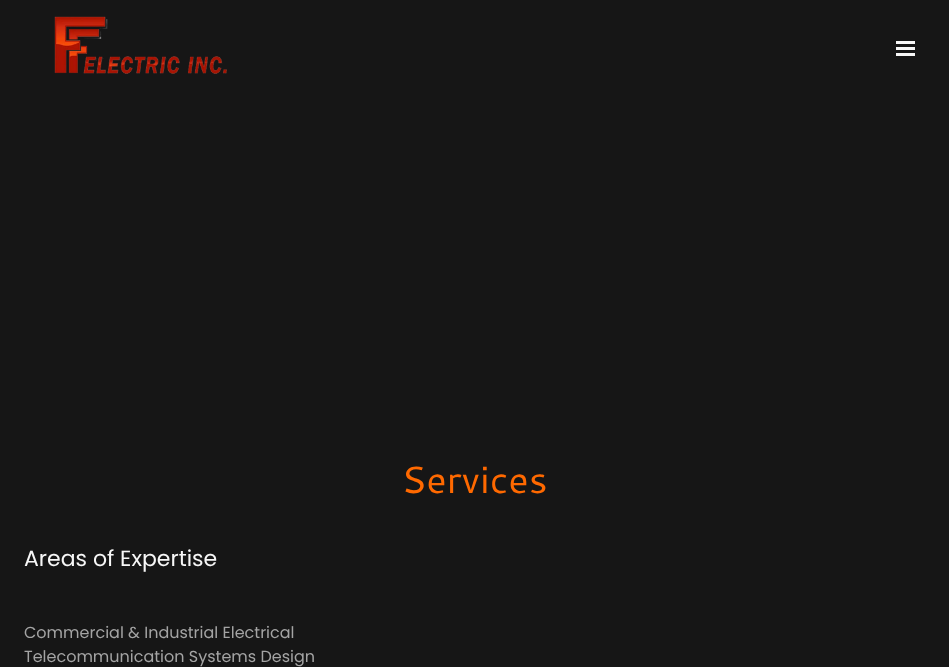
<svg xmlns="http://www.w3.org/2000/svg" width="949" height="667">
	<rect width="100%" height="100%" fill="#161616" />
	<image x="54" y="16" width="173" height="58" href="assets/img1.png" />
	<rect x="896" y="41" width="19" height="3" fill="#F7F7F7" />
	<rect x="896" y="47" width="19" height="3" fill="#F7F7F7" />
	<rect x="896" y="53" width="19" height="3" fill="#F7F7F7" />
	<text x="401" y="493" font-family="Cantarell" font-size="38" fill="#FF6900">Services</text>
	<text x="24" y="566" font-family="Poppins" font-size="22" fill="#F7F7F7">Areas of Expertise</text>
	<g font-family="Poppins" font-size="16" fill="#A4A4A4">
		<text x="24" y="638">Commercial &amp; Industrial Electrical</text>
		<text x="24" y="662">Telecommunication Systems Design</text>
	</g>
</svg>
